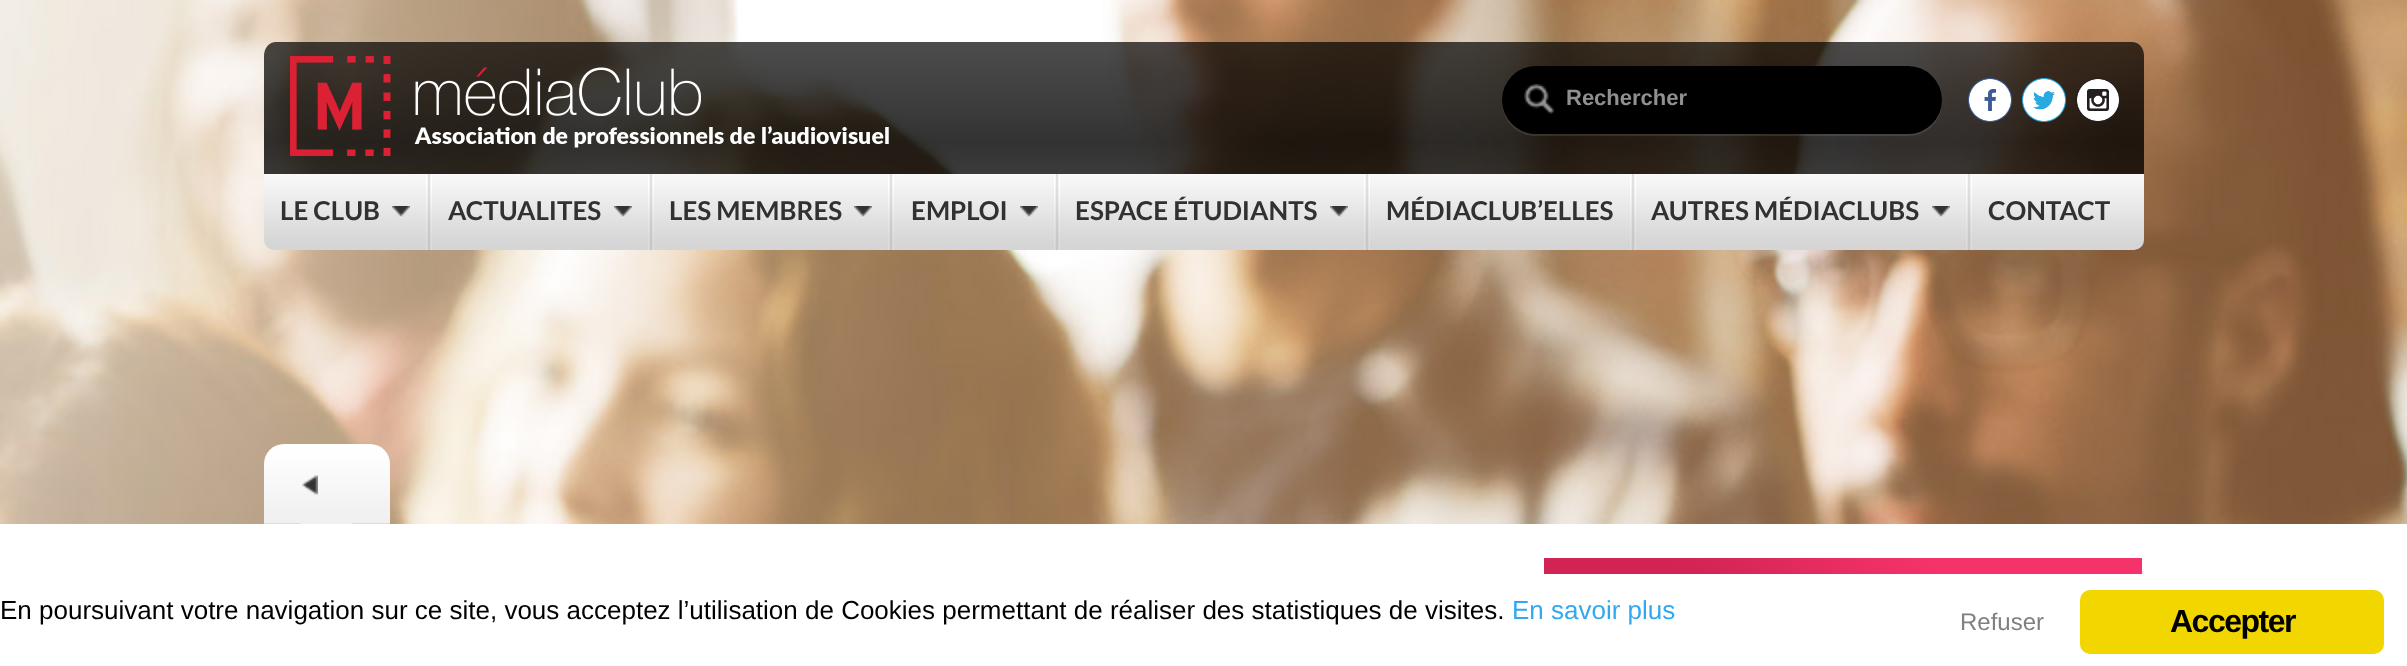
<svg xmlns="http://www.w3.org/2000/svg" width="2407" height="666">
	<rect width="100%" height="100%" fill="#FFFFFF" />
	<image x="0" y="0" width="2407" height="524" href="assets/img1.png" />
	<image x="290" y="56" width="599" height="100" href="assets/img2.png" />
	<path d="M1502 101V102C1502 121 1517 136 1536 136H1908C1927 136 1942 121 1942 102V101C1941 119 1926 134 1908 134H1536C1518 134 1503 119 1502 101Z" fill="#F9F9F9" fill-opacity="0.1" />
	<rect x="1502" y="66" width="440" height="68" rx="34" fill="#000000" />
	<image x="1524" y="84" width="30" height="30" href="assets/img3.png" />
	<text x="1566" y="105" font-family="Liberation Sans" font-size="22" font-weight="700" fill="#909090">Rechercher</text>
	<image x="264" y="174" width="1880" height="76" href="assets/img4.png" />
	<image x="1968" y="78" width="44" height="44" href="assets/img5.png" />
	<image x="2022" y="78" width="44" height="44" href="assets/img6.png" />
	<image x="2076" y="78" width="44" height="44" href="assets/img7.png" />
	<image x="426" y="174" width="6" height="76" href="assets/img8.png" />
	<image x="392" y="206" width="18" height="12" href="assets/img9.png" />
	<text x="280" y="220" font-family="Lato" font-size="26" font-weight="700" fill="#313131">LE CLUB</text>
	<image x="648" y="174" width="6" height="76" href="assets/img8.png" />
	<image x="614" y="206" width="18" height="12" href="assets/img9.png" />
	<text x="448" y="220" font-family="Lato" font-size="26" font-weight="700" fill="#313131">ACTUALITES</text>
	<image x="888" y="174" width="6" height="76" href="assets/img8.png" />
	<image x="854" y="206" width="18" height="12" href="assets/img9.png" />
	<text x="669" y="220" font-family="Lato" font-size="26" font-weight="700" fill="#313131">LES MEMBRES</text>
	<image x="1054" y="174" width="6" height="76" href="assets/img8.png" />
	<image x="1020" y="206" width="18" height="12" href="assets/img9.png" />
	<text x="911" y="220" font-family="Lato" font-size="26" font-weight="700" fill="#313131">EMPLOI</text>
	<image x="1364" y="174" width="6" height="76" href="assets/img8.png" />
	<image x="1330" y="206" width="18" height="12" href="assets/img9.png" />
	<text x="1075" y="220" font-family="Lato" font-size="26" font-weight="700" fill="#313131">ESPACE ÉTUDIANTS</text>
	<image x="1630" y="174" width="6" height="76" href="assets/img8.png" />
	<text x="1386" y="220" font-family="Lato" font-size="26" font-weight="700" fill="#313131">MÉDIACLUB’ELLES</text>
	<image x="1966" y="174" width="6" height="76" href="assets/img8.png" />
	<image x="1932" y="206" width="18" height="12" href="assets/img9.png" />
	<g font-family="Lato" font-size="26" font-weight="700" fill="#313131">
		<text x="1651" y="220">AUTRES MÉDIACLUBS</text>
		<text x="1988" y="220">CONTACT</text>
	</g>
	<image x="264" y="444" width="126" height="80" href="assets/img10.png" />
	<rect x="300" y="523" width="52" height="1" fill="#F0F0F0" />
	<image x="302" y="474" width="16" height="21" href="assets/img11.png" />
	<rect x="1544" y="568" width="600" height="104" rx="6" fill="#E7E7E7" />
	<image x="1544" y="558" width="598" height="16" href="assets/img12.png" />
	<rect x="1544" y="574" width="600" height="92" fill="#FFFFFF" />
	<text x="0" y="619" font-family="Liberation Sans" font-size="26" fill="#000000">En poursuivant votre navigation sur ce site, vous acceptez l’utilisation de Cookies permettant de réaliser des statistiques de visites.</text>
	<text x="1512" y="619" font-family="Liberation Sans" font-size="26" fill="#31A8F0">En savoir plus</text>
	<text x="1960" y="630" font-family="Liberation Sans" font-size="24" fill="#808080">Refuser</text>
	<rect x="2080" y="590" width="304" height="64" rx="10" fill="#F1D600" />
	<text x="2170" y="632" font-family="Liberation Sans" font-size="32" font-weight="700" letter-spacing="-1.5" fill="#000000">Accepter</text>
</svg>
